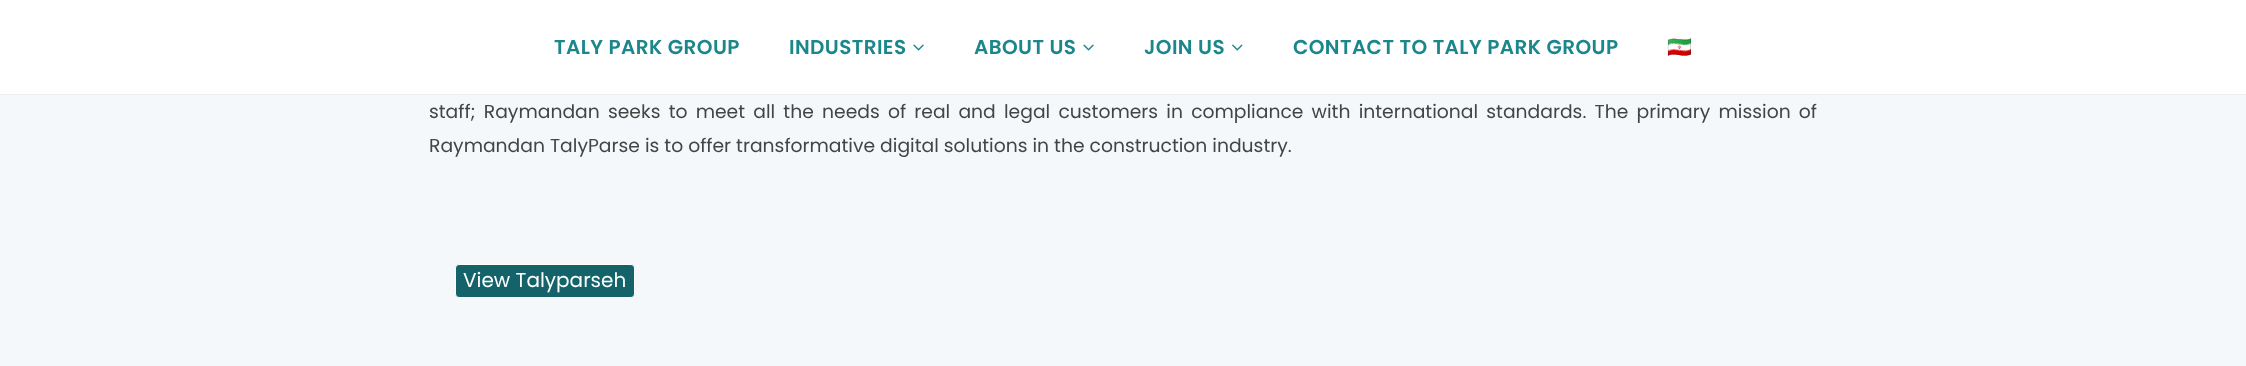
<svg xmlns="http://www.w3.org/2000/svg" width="2246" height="366">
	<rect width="100%" height="100%" fill="#F5F8FA" />
	<rect x="0" y="0" width="2246" height="94" fill="#FFFFFF" />
	<rect x="0" y="94" width="2246" height="1" fill="#EDEDED" />
	<g font-family="Poppins" font-size="20" font-weight="600" letter-spacing="0.4" fill="#1B878C">
		<text x="554" y="54">TALY PARK GROUP</text>
		<text x="789" y="54">INDUSTRIES</text>
	</g>
	<image x="913" y="44" width="11" height="7" href="assets/img1.png" />
	<text x="974" y="54" font-family="Poppins" font-size="20" font-weight="600" letter-spacing="0.4" fill="#1B878C">ABOUT US</text>
	<image x="1083" y="44" width="11" height="7" href="assets/img1.png" />
	<text x="1144" y="54" font-family="Poppins" font-size="20" font-weight="600" letter-spacing="0.4" fill="#1B878C">JOIN US</text>
	<image x="1232" y="44" width="11" height="7" href="assets/img2.png" />
	<text x="1293" y="54" font-family="Poppins" font-size="20" font-weight="600" letter-spacing="0.4" fill="#1B878C">CONTACT TO TALY PARK GROUP</text>
	<text x="1667" y="54" font-family="Noto Color Emoji" font-size="20" font-weight="700" letter-spacing="0.4" fill="#1B878C">🇮🇷</text>
	<g font-family="Poppins" font-size="18.75" fill="#444444">
		<text x="429" y="118" word-spacing="3.2">staff; Raymandan seeks to meet all the needs of real and legal customers in compliance with international standards. The primary mission of</text>
		<text x="429" y="152">Raymandan TalyParse is to offer transformative digital solutions in the construction industry.</text>
	</g>
	<rect x="455.5" y="264.5" width="179" height="33" rx="3.5" fill="#15636A" stroke="#FFFFFF" />
	<text x="463" y="287" font-family="Poppins" font-size="20" fill="#FFFFFF">View Talyparseh</text>
</svg>
